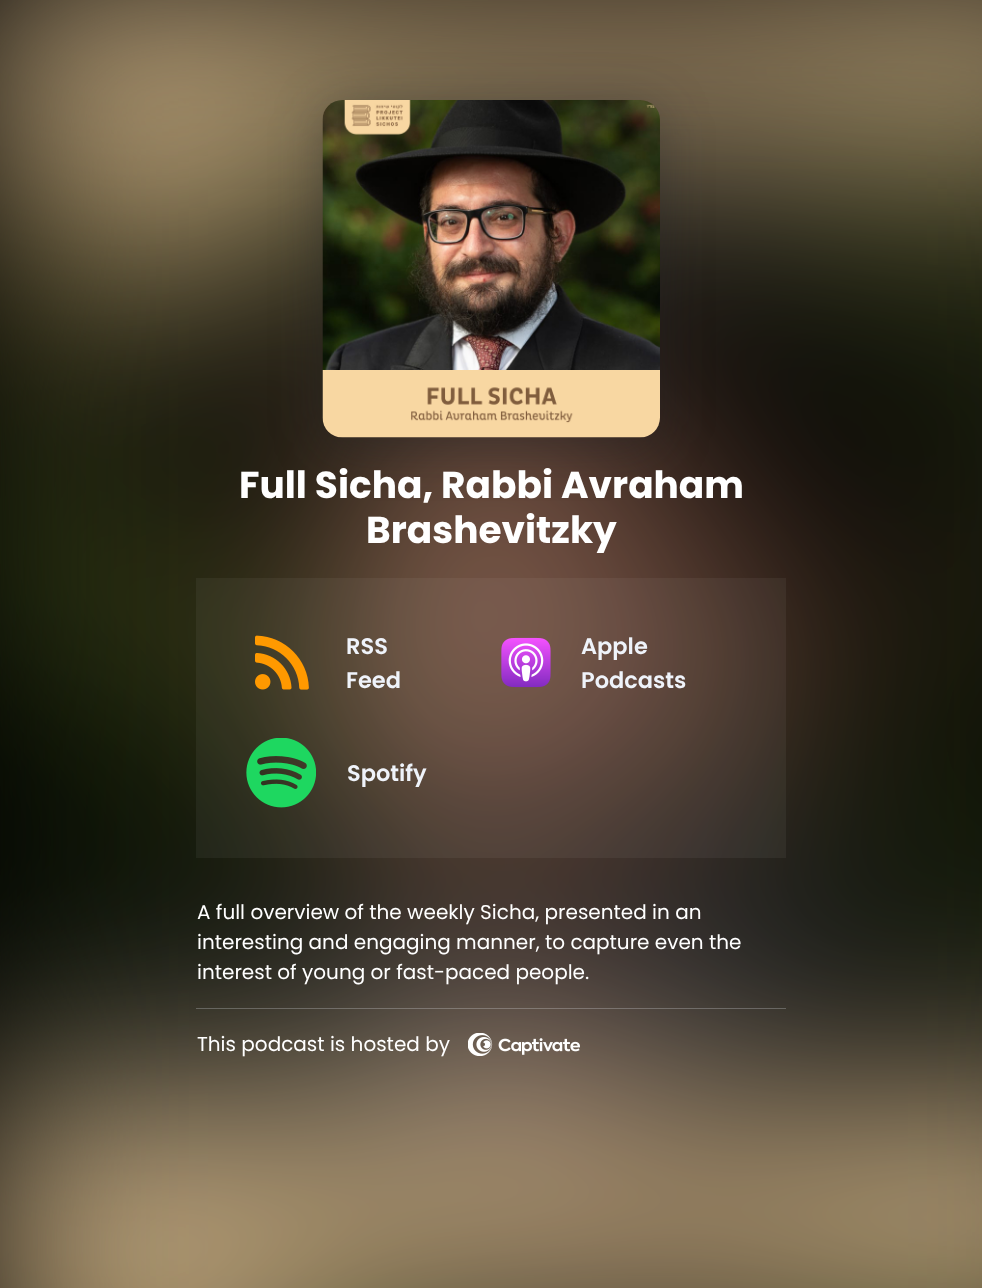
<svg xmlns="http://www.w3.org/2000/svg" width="982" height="1288">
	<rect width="100%" height="100%" fill="#000000" />
	<image x="0" y="0" width="982" height="1288" href="assets/img1.png" />
	<rect x="323" y="108" width="337" height="337" rx="20" fill="#1F2124" fill-opacity="0.38" filter="blur(25px)" />
	<image x="322" y="100" width="338" height="338" href="assets/img2.png" />
	<g font-family="Poppins" font-size="37.5" font-weight="700" fill="#FFFFFF">
		<text x="239" y="498">Full Sicha, Rabbi Avraham</text>
		<text x="366" y="543">Brashevitzky</text>
	</g>
	<rect x="196" y="578" width="590" height="280" fill="#FFFFFF" fill-opacity="0.05" />
	<image x="255" y="635" width="54" height="55" href="assets/img3.png" />
	<g font-family="Poppins" font-size="22.5" font-weight="600" fill="#EFF3FA">
		<text x="346" y="654">RSS</text>
		<text x="346" y="688">Feed</text>
	</g>
	<image x="501" y="637" width="50" height="51" href="assets/img4.png" />
	<g font-family="Poppins" font-size="22.5" font-weight="600" fill="#EFF3FA">
		<text x="581" y="654">Apple</text>
		<text x="581" y="688">Podcasts</text>
	</g>
	<image x="246" y="738" width="70" height="70" href="assets/img5.png" />
	<text x="347" y="781" font-family="Poppins" font-size="22.5" font-weight="600" fill="#EFF3FA">Spotify</text>
	<g font-family="Poppins" font-size="20" fill="#FFFFFF">
		<text x="197" y="919">A full overview of the weekly Sicha, presented in an</text>
		<text x="197" y="949">interesting and engaging manner, to capture even the</text>
		<text x="197" y="979">interest of young or fast-paced people.</text>
	</g>
	<rect x="196" y="1008" width="590" height="1" fill="#EFF3FA" fill-opacity="0.25" />
	<text x="197" y="1051" font-family="Poppins" font-size="20" fill="#FFFFFF">This podcast is hosted by</text>
	<image x="468" y="1033" width="112" height="23" href="assets/img6.png" />
</svg>
